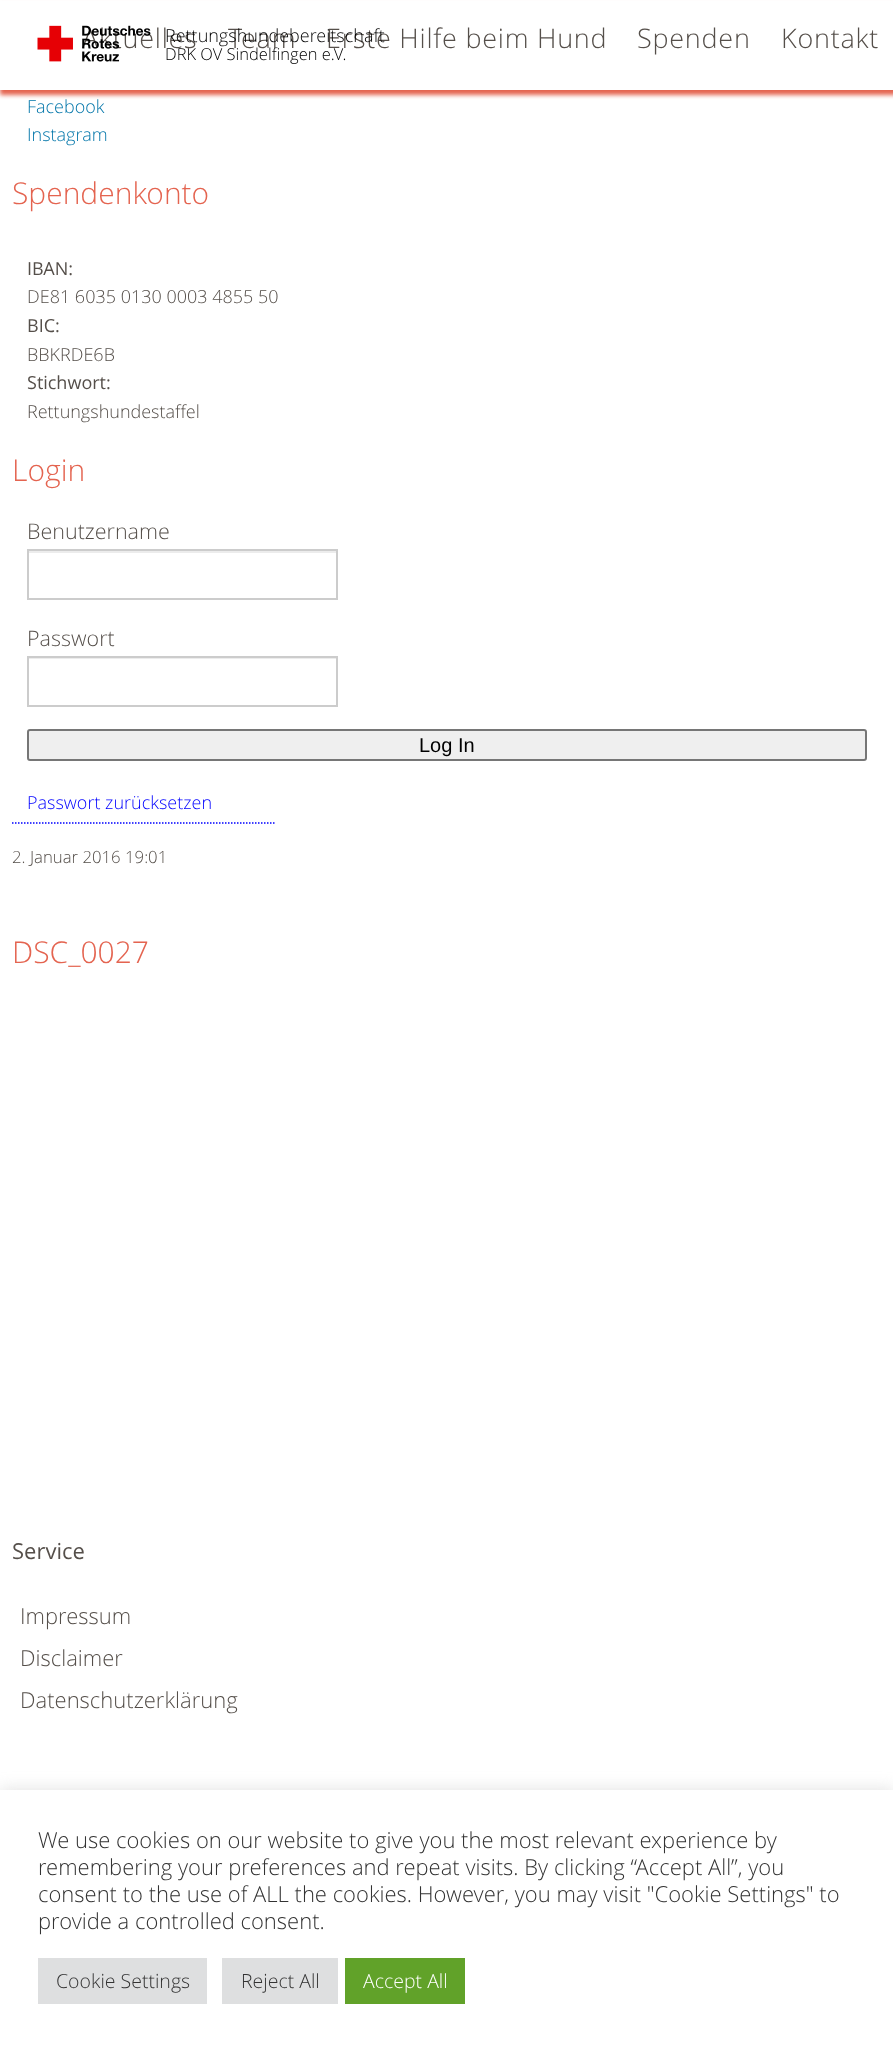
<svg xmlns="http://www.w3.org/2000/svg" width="893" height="2049">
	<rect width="100%" height="100%" fill="#FFFFFF" />
	<rect x="0" y="5" width="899" height="90" fill="#E46450" filter="blur(2px)" />
	<rect x="0" y="1" width="893" height="89" fill="#FFFFFF" />
	<text x="82" y="48" font-family="Open Sans" font-size="27" font-weight="300" letter-spacing="0.75" fill="#554F4A">Aktuelles</text>
	<image x="37" y="25" width="114" height="37" href="assets/img1.png" />
	<g font-family="Open Sans" font-size="27" font-weight="300" letter-spacing="0.75" fill="#554F4A">
		<text x="228" y="48">Team</text>
		<text x="326" y="48">Erste Hilfe beim Hund</text>
		<text x="637" y="48">Spenden</text>
		<text x="781" y="48">Kontakt</text>
	</g>
	<text x="165" y="42" font-family="Open Sans" font-size="18" font-weight="300" fill="#000000">Rettungshundebereitschaft</text>
	<text x="165" y="60" font-family="Open Sans" font-size="16.5" font-weight="300" fill="#000000">DRK OV Sindelfingen e.V.</text>
	<g font-family="Open Sans" font-size="18" font-weight="300" fill="#0075A9">
		<text x="27" y="113">Facebook</text>
		<text x="27" y="141">Instagram</text>
	</g>
	<text x="12" y="204" font-family="Open Sans" font-size="30" font-weight="300" fill="#E46450">Spendenkonto</text>
	<text x="27" y="275" font-family="Open Sans" font-size="18" fill="#554F4A">IBAN:</text>
	<text x="27" y="303" font-family="Open Sans" font-size="18" font-weight="300" fill="#554F4A">DE81 6035 0130 0003 4855 50</text>
	<text x="27" y="332" font-family="Open Sans" font-size="18" fill="#554F4A">BIC:</text>
	<text x="27" y="361" font-family="Open Sans" font-size="18" font-weight="300" fill="#554F4A">BBKRDE6B</text>
	<text x="27" y="389" font-family="Open Sans" font-size="18" fill="#554F4A">Stichwort:</text>
	<text x="27" y="418" font-family="Open Sans" font-size="18" font-weight="300" fill="#554F4A">Rettungshundestaffel</text>
	<text x="12" y="481" font-family="Open Sans" font-size="30" font-weight="300" fill="#E46450">Login</text>
	<text x="27" y="539" font-family="Open Sans" font-size="21.5" font-weight="300" fill="#554F4A">Benutzername</text>
	<rect x="29" y="551" width="307" height="2" fill="#ECECEC" />
	<rect x="28" y="550" width="309" height="49" fill="none" stroke="#CCCCCC" stroke-width="2" />
	<text x="27" y="646" font-family="Open Sans" font-size="21.5" font-weight="300" fill="#554F4A">Passwort</text>
	<rect x="29" y="658" width="307" height="1" fill="#ECECEC" />
	<rect x="28" y="657" width="309" height="49" fill="none" stroke="#CCCCCC" stroke-width="2" />
	<rect x="28" y="730" width="838" height="30" rx="2" fill="#EFEFEF" stroke="#767676" stroke-width="2" />
	<text x="419" y="752" font-family="Liberation Sans" font-size="20" fill="#000000">Log In</text>
	<path d="M12 823H274.5" fill="none" stroke="#0000FF" stroke-width="1.5" stroke-dasharray="1.5 1.5" />
	<text x="27" y="809" font-family="Open Sans" font-size="18" font-weight="300" fill="#0000FF">Passwort zurücksetzen</text>
	<text x="12" y="863" font-family="Open Sans" font-size="16.75" font-weight="300" fill="#554F4A">2. Januar 2016 19:01</text>
	<text x="12" y="963" font-family="Open Sans" font-size="30" font-weight="300" fill="#E46450">DSC_0027</text>
	<text x="12" y="1559" font-family="Open Sans" font-size="22" fill="#554F4A">Service</text>
	<g font-family="Open Sans" font-size="22" font-weight="300" fill="#554F4A">
		<text x="20" y="1624">Impressum</text>
		<text x="20" y="1666">Disclaimer</text>
		<text x="20" y="1708">Datenschutzerklärung</text>
	</g>
	<rect x="0" y="1788" width="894" height="260" fill="#ACABAB" fill-opacity="0.3" filter="blur(7.5px)" />
	<rect x="0" y="1790" width="893" height="259" fill="#FFFFFF" />
	<g font-family="Open Sans" font-size="22" font-weight="300" fill="#333333">
		<text x="38" y="1848">We use cookies on our website to give you the most relevant experience by</text>
		<text x="38" y="1875">remembering your preferences and repeat visits. By clicking “Accept All”, you</text>
		<text x="38" y="1902">consent to the use of ALL the cookies. However, you may visit "Cookie Settings" to</text>
		<text x="38" y="1929">provide a controlled consent.</text>
	</g>
	<rect x="38" y="1958" width="169" height="46" fill="#DEDFE0" />
	<text x="56" y="1988" font-family="Open Sans" font-size="19.5" font-weight="300" fill="#333333">Cookie Settings</text>
	<rect x="222" y="1958" width="116" height="46" fill="#DEDFE0" />
	<text x="241" y="1988" font-family="Open Sans" font-size="19.5" font-weight="300" fill="#333333">Reject All</text>
	<rect x="345" y="1958" width="120" height="46" fill="#61A229" />
	<text x="363" y="1988" font-family="Open Sans" font-size="19.5" font-weight="300" fill="#FFFFFF">Accept All</text>
</svg>
